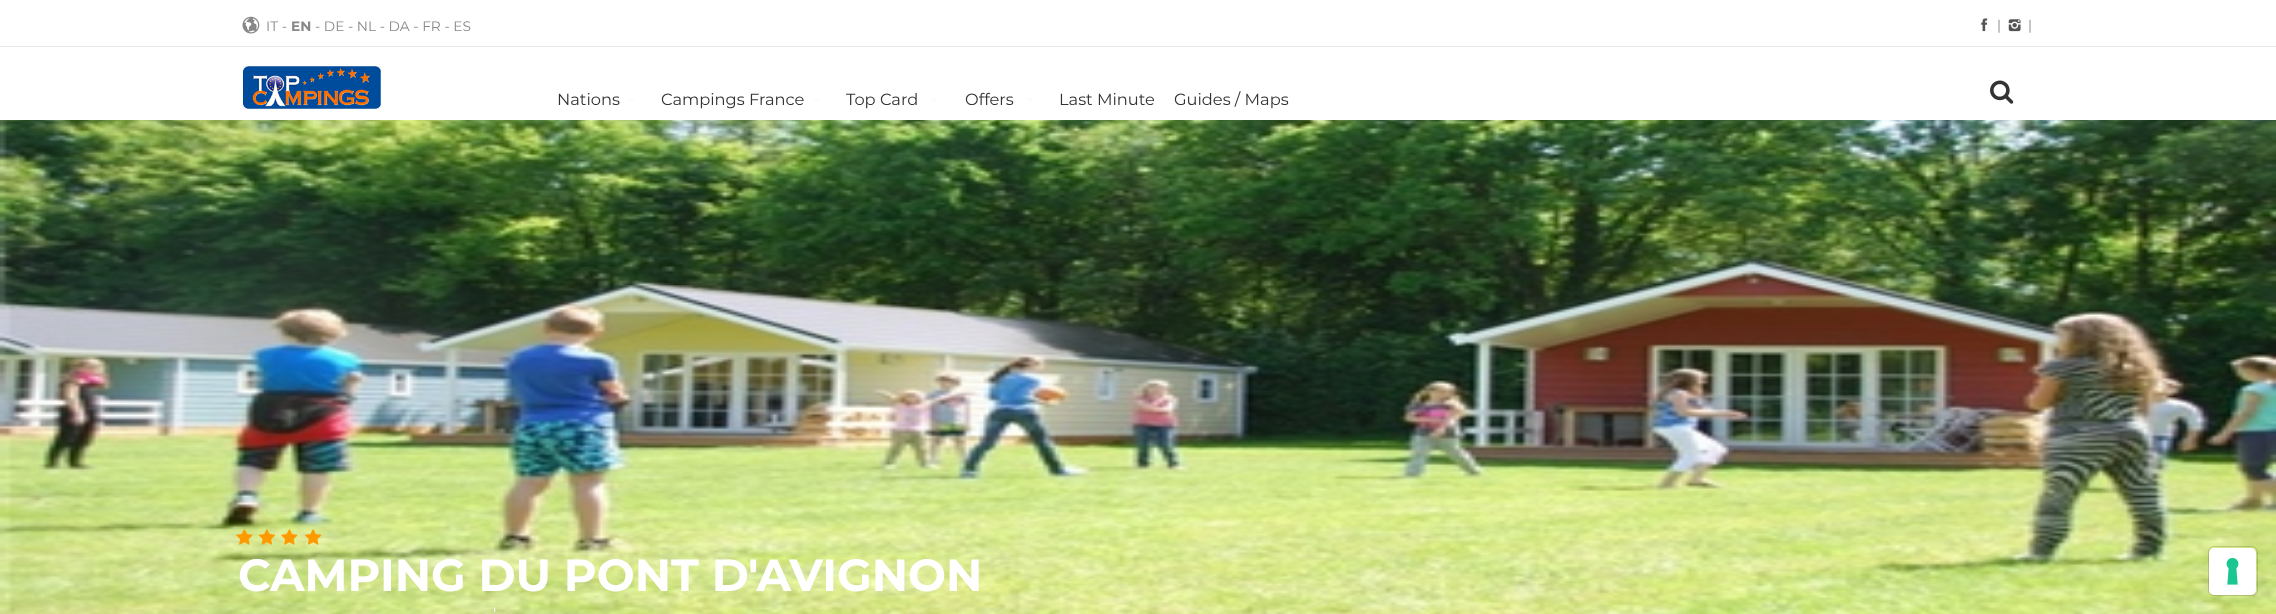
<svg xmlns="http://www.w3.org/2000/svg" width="2276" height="614">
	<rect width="100%" height="100%" fill="#FFFFFF" />
	<rect x="0" y="46" width="2276" height="1" fill="#E6E6E6" />
	<image x="242" y="16" width="18" height="18" href="assets/img1.png" />
	<text x="266" y="31" font-family="Montserrat" font-size="13.75" fill="#888888">IT -</text>
	<text x="291" y="31" font-family="Montserrat" font-size="13.75" font-weight="700" fill="#888888">EN</text>
	<text x="315" y="31" font-family="Montserrat" font-size="13.75" fill="#888888">- DE - NL - DA - FR - ES</text>
	<image x="1981" y="18" width="7" height="14" href="assets/img2.png" />
	<text x="1997" y="30" font-family="Montserrat" font-size="13.75" fill="#888888">|</text>
	<image x="2008" y="19" width="13" height="13" href="assets/img3.png" />
	<text x="2028" y="30" font-family="Montserrat" font-size="13.75" fill="#888888">|</text>
	<image x="243" y="66" width="138" height="43" href="assets/img4.png" />
	<text x="557" y="105" font-family="Montserrat" font-size="16.25" fill="#333333">Nations</text>
	<image x="628" y="97" width="7" height="4" href="assets/img5.png" />
	<text x="661" y="105" font-family="Montserrat" font-size="16.25" fill="#333333">Campings France</text>
	<image x="813" y="97" width="7" height="4" href="assets/img5.png" />
	<text x="846" y="105" font-family="Montserrat" font-size="16.25" fill="#333333">Top Card</text>
	<image x="931" y="98" width="6" height="3" href="assets/img6.png" />
	<text x="965" y="105" font-family="Montserrat" font-size="16.25" fill="#333333">Offers</text>
	<image x="1026" y="98" width="6" height="3" href="assets/img6.png" />
	<g font-family="Montserrat" font-size="16.25" fill="#333333">
		<text x="1059" y="105">Last Minute</text>
		<text x="1174" y="105">Guides / Maps</text>
	</g>
	<image x="1990" y="80" width="24" height="24" href="assets/img7.png" />
	<image x="0" y="120" width="2276" height="494" href="assets/img8.png" />
	<image x="236" y="529" width="17" height="16" href="assets/img9.png" />
	<image x="258" y="529" width="17" height="16" href="assets/img10.png" />
	<image x="281" y="529" width="17" height="16" href="assets/img11.png" />
	<image x="305" y="529" width="17" height="16" href="assets/img12.png" />
	<text x="238" y="591" font-family="Montserrat" font-size="45" font-weight="700" fill="#FFFFFF">CAMPING DU PONT D'AVIGNON</text>
	<text x="493" y="619" font-family="Montserrat" font-size="16.25" fill="#FFFFFF">'</text>
	<rect x="2208.5" y="546.5" width="49" height="49" rx="5.5" fill="none" stroke="#000000" stroke-opacity="0.15" />
	<rect x="2209" y="548" width="47" height="47" rx="5" fill="#FFFFFF" />
	<image x="2226" y="557" width="13" height="28" href="assets/img13.png" />
</svg>
